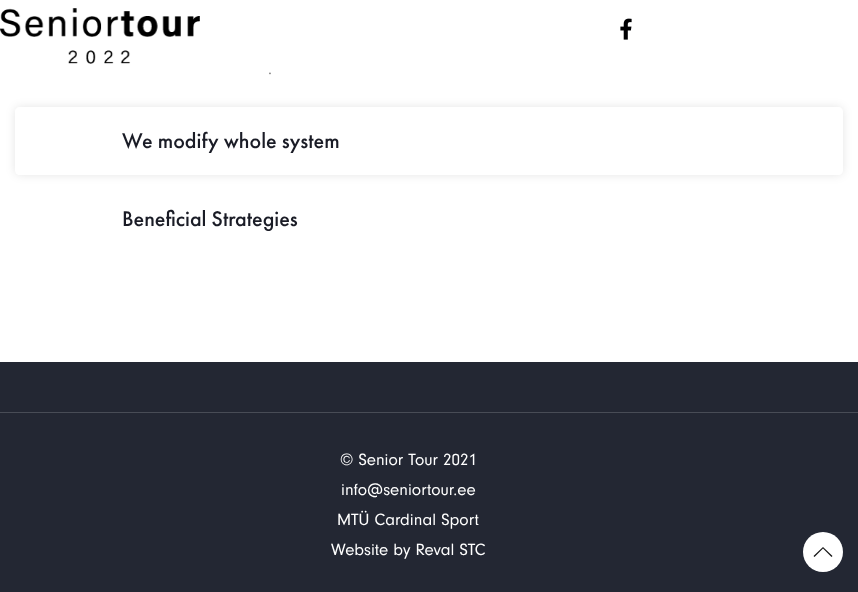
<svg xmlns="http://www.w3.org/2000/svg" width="858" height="592">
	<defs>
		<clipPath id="clip1"><path d="M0 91H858V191H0ZM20 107H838C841 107 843 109 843 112V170C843 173 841 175 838 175H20C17 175 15 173 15 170V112C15 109 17 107 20 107Z" clip-rule="evenodd" /></clipPath>
	</defs>
	<rect width="100%" height="100%" fill="#FFFFFF" />
	<image x="0" y="8" width="200" height="56" href="assets/img1.png" />
	<image x="620" y="18" width="12" height="22" href="assets/img2.png" />
	<text x="268" y="74" font-family="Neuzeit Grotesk" font-size="17" fill="#7D7D7D">.</text>
	<g clip-path="url(#clip1)">
		<rect x="15" y="107" width="828" height="68" rx="5" fill="#000000" fill-opacity="0.1" filter="blur(5px)" />
	</g>
	<g font-family="Futura PT" font-size="22" font-weight="500" fill="#1A1C26">
		<text x="122" y="148">We modify whole system</text>
		<text x="122" y="226">Beneficial Strategies</text>
	</g>
	<rect x="0" y="362" width="858" height="230" fill="#232733" />
	<rect x="0" y="412" width="858" height="1" fill="#484C56" />
	<g font-family="Neuzeit Grotesk" font-size="17" fill="#FFFFFF">
		<text x="340" y="465">© Senior Tour 2021</text>
		<text x="341" y="495">info@seniortour.ee</text>
		<text x="337" y="525">MTÜ Cardinal Sport</text>
		<text x="331" y="555">Website by Reval STC</text>
	</g>
	<circle cx="823" cy="552" r="20" fill="#FFFFFF" />
	<path d="M832.5 556L831.5 557L823 548.5L814.5 557L813.5 556L823 547Z" fill="#191919" />
</svg>
